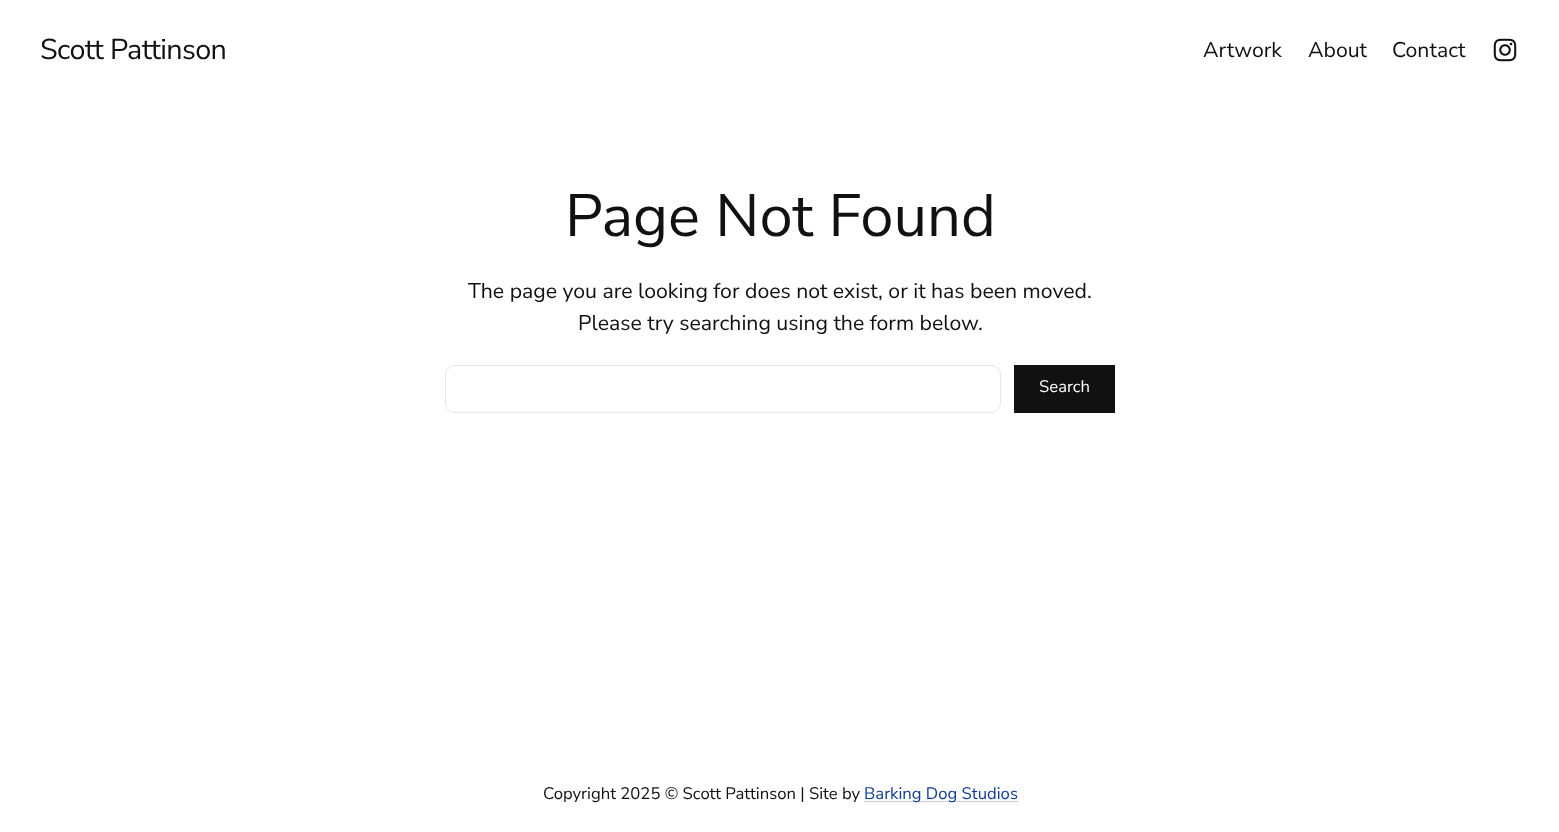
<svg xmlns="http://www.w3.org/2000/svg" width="1559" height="832">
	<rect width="100%" height="100%" fill="#FFFFFF" />
	<text x="40" y="59" font-family="Nunito Sans" font-size="28.75" letter-spacing="-0.6" fill="#111111">Scott Pattinson</text>
	<g font-family="Nunito Sans" font-size="21.25" fill="#111111">
		<text x="1203" y="57">Artwork</text>
		<text x="1308" y="57">About</text>
		<text x="1392" y="57">Contact</text>
	</g>
	<image x="1493" y="38" width="24" height="24" href="assets/img1.png" />
	<text x="565" y="236" font-family="Nunito Sans" font-size="59.75" fill="#111111">Page Not Found</text>
	<g font-family="Nunito Sans" font-size="21.25" fill="#111111">
		<text x="468" y="298">The page you are looking for does not exist, or it has been moved.</text>
		<text x="578" y="330">Please try searching using the form below.</text>
	</g>
	<rect x="445.5" y="365.5" width="555" height="47" rx="9.5" fill="none" stroke="#E6E6E6" />
	<rect x="1014" y="365" width="101" height="48" fill="#111111" />
	<text x="1039" y="392" font-family="Nunito Sans" font-size="16.7" fill="#FFFFFF">Search</text>
	<text x="543" y="799" font-family="Nunito Sans" font-size="16.7" fill="#111111">Copyright 2025 © Scott Pattinson | Site by</text>
	<rect x="864" y="801" width="154" height="1" fill="#C3CFE4" />
	<text x="864" y="799" font-family="Nunito Sans" font-size="16.7" fill="#103D92">Barking Dog Studios</text>
</svg>
